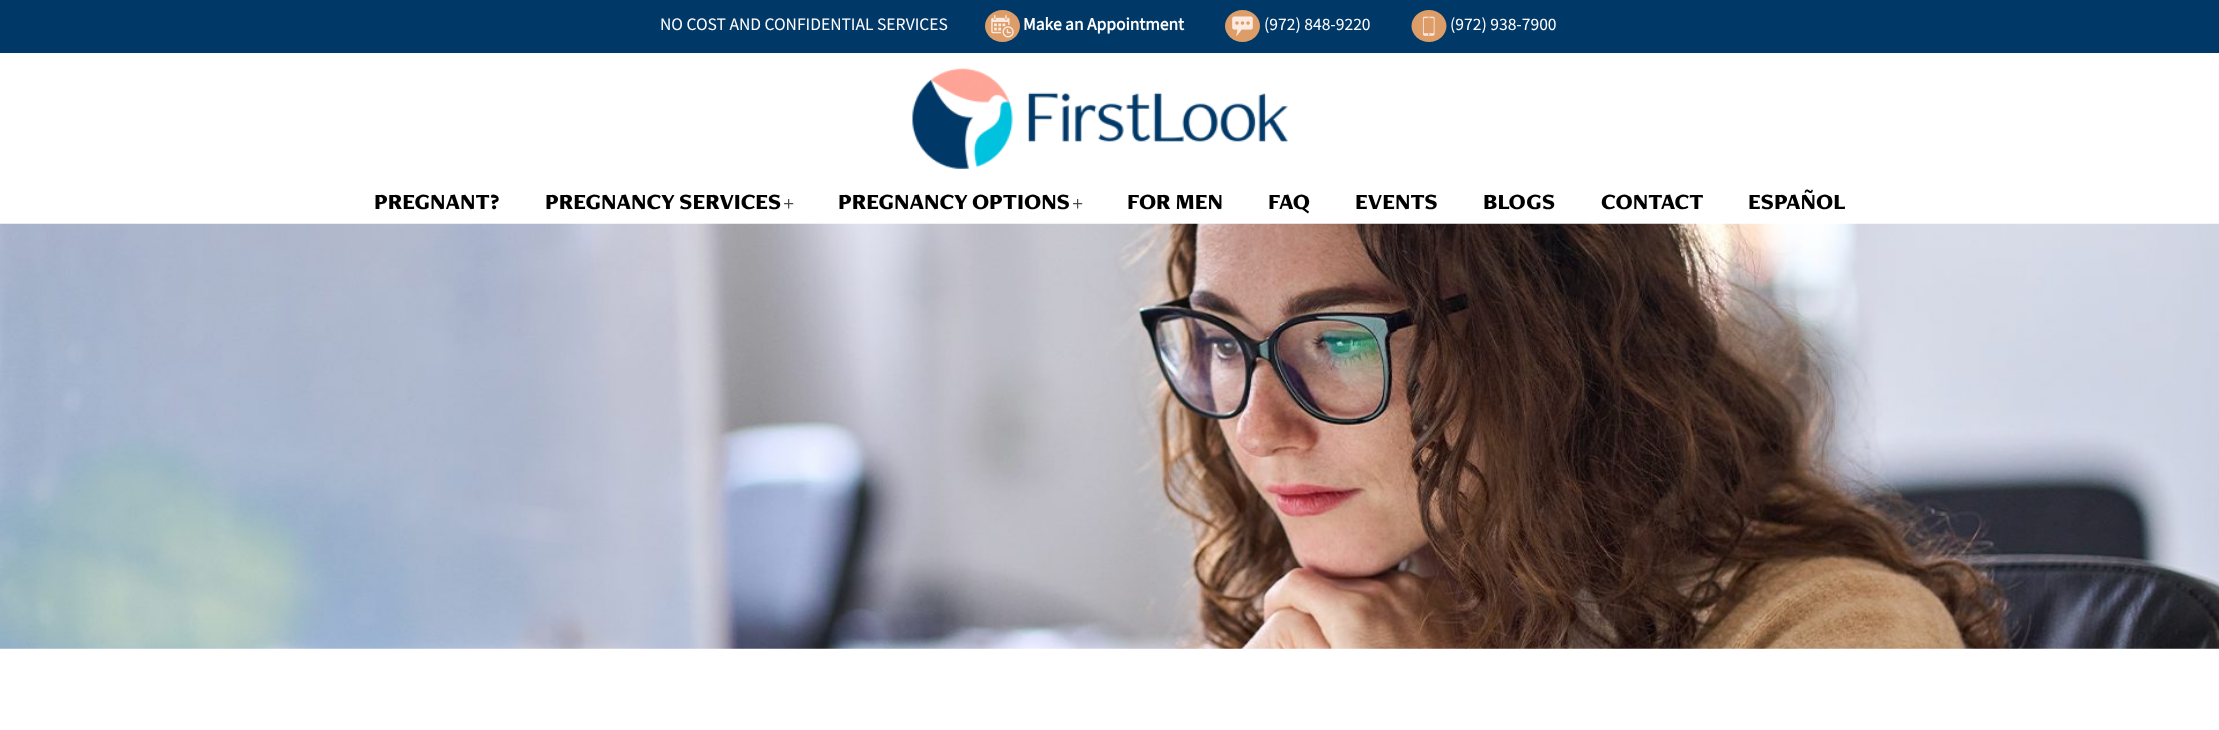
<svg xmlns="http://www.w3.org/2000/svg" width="2219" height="730">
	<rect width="100%" height="100%" fill="#FFFFFF" />
	<rect x="0" y="0" width="2219" height="53" fill="#003968" />
	<text x="660" y="30" font-family="Source Sans Pro" font-size="17.5" fill="#FFFFFF">NO COST AND CONFIDENTIAL SERVICES</text>
	<ellipse cx="1002.5" cy="26" rx="17.5" ry="16" fill="#DD9D68" />
	<image x="991" y="15" width="23" height="23" href="assets/img1.png" />
	<text x="1023" y="30" font-family="Source Sans Pro" font-size="17.5" font-weight="700" fill="#FFFFFF">Make an Appointment</text>
	<ellipse cx="1242.5" cy="26" rx="17.5" ry="16" fill="#DD9D68" />
	<image x="1232" y="16" width="21" height="20" href="assets/img2.png" />
	<text x="1264" y="30" font-family="Source Sans Pro" font-size="17.5" fill="#FFFFFF">(972) 848-9220</text>
	<ellipse cx="1429" cy="26" rx="17.5" ry="16" fill="#DD9D68" />
	<image x="1422" y="16" width="13" height="20" href="assets/img3.png" />
	<text x="1450" y="30" font-family="Source Sans Pro" font-size="17.5" fill="#FFFFFF">(972) 938-7900</text>
	<image x="912" y="68" width="376" height="101" href="assets/img4.png" />
	<g font-family="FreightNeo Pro" font-size="22.5" font-weight="900" fill="#000000">
		<text x="374" y="209">PREGNANT?</text>
		<text x="545" y="209">PREGNANCY SERVICES</text>
	</g>
	<text x="783" y="209" font-family="FreightNeo Pro" font-size="22.5" fill="#4A4A4A">+</text>
	<text x="838" y="209" font-family="FreightNeo Pro" font-size="22.5" font-weight="900" fill="#000000">PREGNANCY OPTIONS</text>
	<text x="1072" y="209" font-family="FreightNeo Pro" font-size="22.5" fill="#4A4A4A">+</text>
	<g font-family="FreightNeo Pro" font-size="22.5" font-weight="900" fill="#000000">
		<text x="1127" y="209">FOR MEN</text>
		<text x="1268" y="209">FAQ</text>
		<text x="1355" y="209">EVENTS</text>
		<text x="1483" y="209">BLOGS</text>
		<text x="1601" y="209">CONTACT</text>
		<text x="1748" y="209">ESPAÑOL</text>
	</g>
	<image x="0" y="223" width="2219" height="426" href="assets/img5.png" />
</svg>
